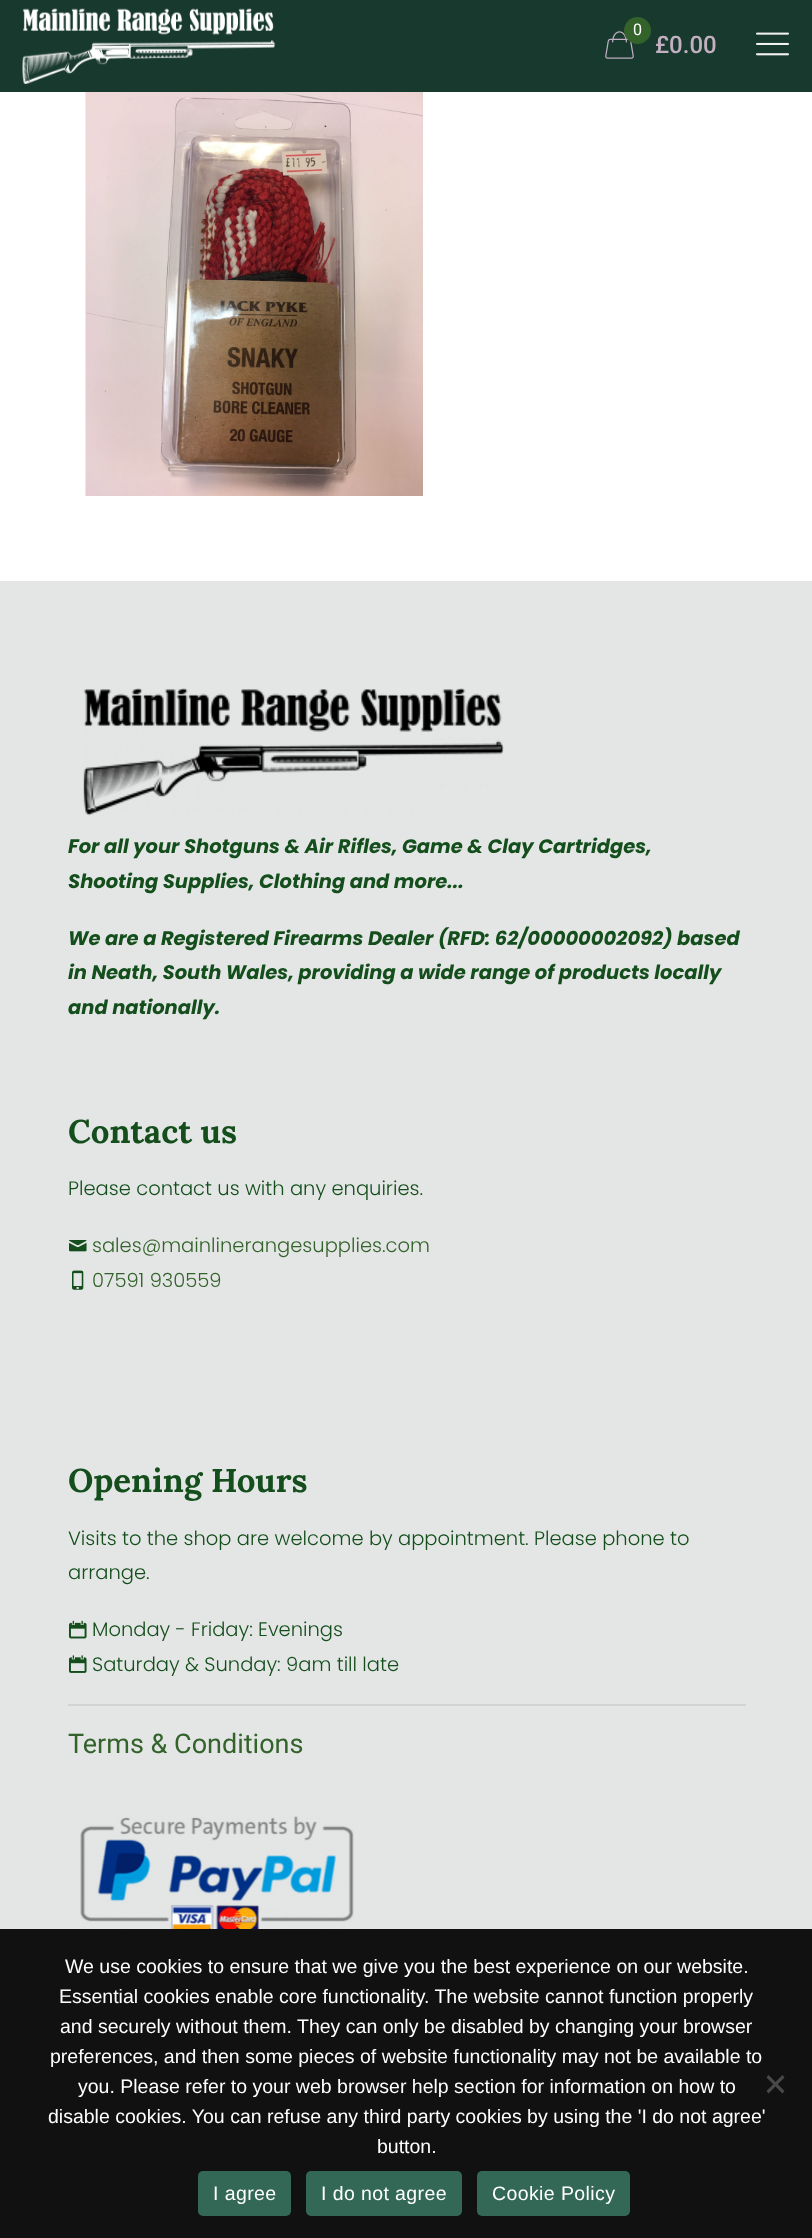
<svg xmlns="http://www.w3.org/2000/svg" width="812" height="2238">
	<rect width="100%" height="100%" fill="#FFFFFF" />
	<rect x="0" y="0" width="812" height="92" fill="#18392E" />
	<image x="22" y="8" width="253" height="76" href="assets/img1.png" />
	<image x="756" y="32" width="33" height="24" href="assets/img2.png" />
	<image x="605" y="31" width="29" height="28" href="assets/img3.png" />
	<circle cx="637.5" cy="30.5" r="13.5" fill="#34622B" />
	<text x="633" y="35" font-family="Roboto" font-size="16" fill="#FFFFFF">0</text>
	<text x="655" y="53" font-family="Roboto" font-size="24" font-weight="500" fill="#C2B0C1">£0.00</text>
	<image x="85" y="92" width="338" height="404" href="assets/img4.png" />
	<rect x="0" y="581" width="812" height="1348" fill="#E3E6E4" />
	<image x="83" y="688" width="421" height="128" href="assets/img5.png" />
	<g font-family="Poppins" font-size="19.5" font-weight="700" font-style="italic" fill="#144E1C">
		<text x="68" y="853">For all your Shotguns &amp; Air Rifles, Game &amp; Clay Cartridges,</text>
		<text x="68" y="888">Shooting Supplies, Clothing and more...</text>
		<text x="68" y="945">We are a Registered Firearms Dealer (RFD: 62/00000002092) based</text>
		<text x="68" y="979">in Neath, South Wales, providing a wide range of products locally</text>
		<text x="68" y="1014">and nationally.</text>
	</g>
	<text x="68" y="1143" font-family="Lora" font-size="33" font-weight="700" fill="#144E1C">Contact us</text>
	<text x="68" y="1195" font-family="Poppins" font-size="19.5" font-weight="300" fill="#144E1C">Please contact us with any enquiries.</text>
	<image x="69" y="1240" width="18" height="12" href="assets/img6.png" />
	<text x="92" y="1252" font-family="Poppins" font-size="19.5" font-weight="300" fill="#34622B">sales@mainlinerangesupplies.com</text>
	<image x="72" y="1270" width="12" height="20" href="assets/img7.png" />
	<text x="92" y="1287" font-family="Poppins" font-size="19.5" font-weight="300" fill="#34622B">07591 930559</text>
	<text x="68" y="1492" font-family="Lora" font-size="33" font-weight="700" fill="#144E1C">Opening Hours</text>
	<g font-family="Poppins" font-size="19.5" font-weight="300" fill="#144E1C">
		<text x="68" y="1545">Visits to the shop are welcome by appointment. Please phone to</text>
		<text x="68" y="1579">arrange.</text>
	</g>
	<image x="69" y="1620" width="18" height="19" href="assets/img8.png" />
	<text x="92" y="1636" font-family="Poppins" font-size="19.5" font-weight="300" fill="#144E1C">Monday - Friday: Evenings</text>
	<image x="69" y="1655" width="18" height="18" href="assets/img9.png" />
	<text x="92" y="1671" font-family="Poppins" font-size="19.5" font-weight="300" fill="#144E1C">Saturday &amp; Sunday: 9am till late</text>
	<rect x="68" y="1704" width="678" height="2" fill="#D1D4D2" />
	<text x="68" y="1753" font-family="Roboto" font-size="27" fill="#34622B">Terms &amp; Conditions</text>
	<image x="80" y="1816" width="274" height="113" href="assets/img10.png" />
	<rect x="0" y="1929" width="812" height="309" fill="#111111" />
	<g font-family="Liberation Sans" font-size="19.5" fill="#FFFFFF">
		<text x="65" y="1973">We use cookies to ensure that we give you the best experience on our website.</text>
		<text x="59" y="2003">Essential cookies enable core functionality. The website cannot function properly</text>
		<text x="60" y="2033">and securely without them. They can only be disabled by changing your browser</text>
		<text x="50" y="2063">preferences, and then some pieces of website functionality may not be available to</text>
		<text x="78" y="2093">you. Please refer to your web browser help section for information on how to</text>
		<text x="48" y="2123">disable cookies. You can refuse any third party cookies by using the 'I do not agree'</text>
		<text x="377" y="2153">button.</text>
	</g>
	<path d="M782.5 2075L784.5 2077.5L768.5 2093.5L766.5 2091Z" fill="#494949" />
	<path d="M766.5 2077.5L768.5 2075L784.5 2091L782.5 2093.5Z" fill="#494949" />
	<rect x="198" y="2171" width="93" height="45" rx="5" fill="#336857" />
	<text x="213" y="2200" font-family="Liberation Sans" font-size="19.5" letter-spacing="0.4" fill="#FFFFFF">I agree</text>
	<rect x="306" y="2171" width="156" height="45" rx="5" fill="#336857" />
	<text x="321" y="2200" font-family="Liberation Sans" font-size="19.5" letter-spacing="0.4" fill="#FFFFFF">I do not agree</text>
	<rect x="477" y="2171" width="153" height="45" rx="5" fill="#336857" />
	<text x="492" y="2200" font-family="Liberation Sans" font-size="19.5" letter-spacing="0.4" fill="#FFFFFF">Cookie Policy</text>
</svg>
